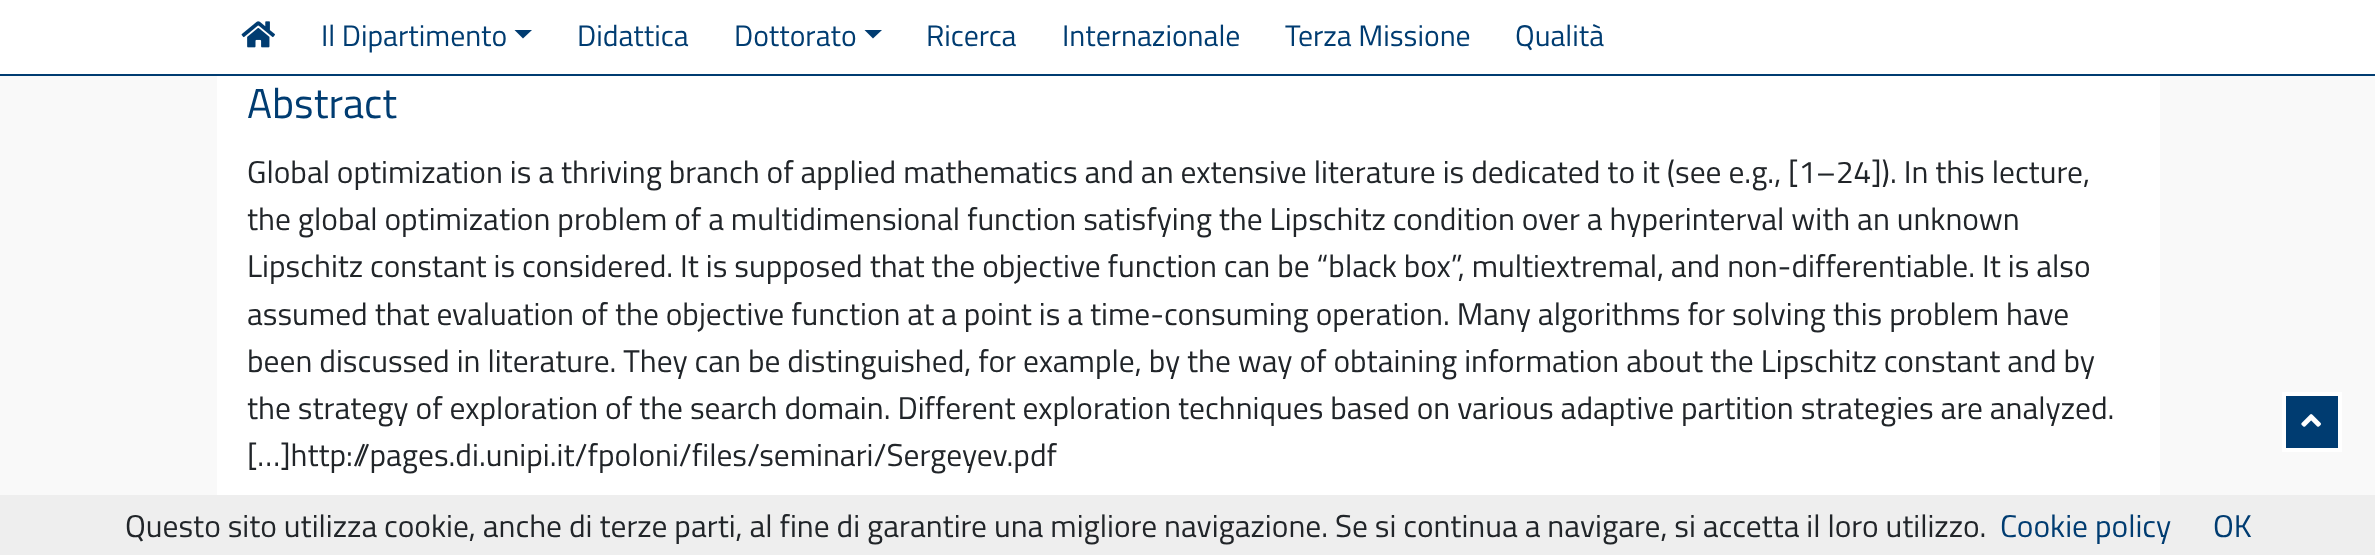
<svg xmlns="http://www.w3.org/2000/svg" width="2375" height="555">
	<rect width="100%" height="100%" fill="#F9F9F9" />
	<rect x="0" y="0" width="2375" height="74" fill="#FFFFFF" />
	<rect x="0" y="74" width="2375" height="2" fill="#003C71" />
	<image x="241" y="21" width="34" height="27" href="assets/img1.png" />
	<text x="321" y="46" font-family="Titillium Web" font-size="29.75" fill="#003C71">Il Dipartimento</text>
	<path d="M514.5 30H532L523 38.5Z" fill="#003C71" />
	<g font-family="Titillium Web" font-size="29.75" fill="#003C71">
		<text x="577" y="46">Didattica</text>
		<text x="734" y="46">Dottorato</text>
	</g>
	<path d="M864.5 30H882L873 38.5Z" fill="#003C71" />
	<g font-family="Titillium Web" font-size="29.75" fill="#003C71">
		<text x="926" y="46">Ricerca</text>
		<text x="1062" y="46">Internazionale</text>
		<text x="1285" y="46">Terza Missione</text>
		<text x="1515" y="46">Qualità</text>
	</g>
	<rect x="217" y="76" width="1943" height="419" fill="#FFFFFF" />
	<text x="247" y="118" font-family="Titillium Web" font-size="42" fill="#003C71">Abstract</text>
	<g font-family="Titillium Web" font-size="31.5" fill="#212529">
		<text x="247" y="183">Global optimization is a thriving branch of applied mathematics and an extensive literature is dedicated to it (see e.g., [1–24]). In this lecture,</text>
		<text x="247" y="230">the global optimization problem of a multidimensional function satisfying the Lipschitz condition over a hyperinterval with an unknown</text>
		<text x="247" y="277">Lipschitz constant is considered. It is supposed that the objective function can be “black box”, multiextremal, and non-differentiable. It is also</text>
		<text x="247" y="325">assumed that evaluation of the objective function at a point is a time-consuming operation. Many algorithms for solving this problem have</text>
		<text x="247" y="372">been discussed in literature. They can be distinguished, for example, by the way of obtaining information about the Lipschitz constant and by</text>
		<text x="247" y="419">the strategy of exploration of the search domain. Different exploration techniques based on various adaptive partition strategies are analyzed.</text>
		<text x="247" y="466">[…]http://pages.di.unipi.it/fpoloni/files/seminari/Sergeyev.pdf</text>
	</g>
	<rect x="2284" y="394" width="56" height="56" fill="#003C71" stroke="#FFFFFF" stroke-width="4" />
	<image x="2301" y="414" width="20" height="13" href="assets/img2.png" />
	<rect x="0" y="495" width="2375" height="60" fill="#EEEEEE" />
	<text x="125" y="537" font-family="Titillium Web" font-size="31.5" fill="#212529">Questo sito utilizza cookie, anche di terze parti, al fine di garantire una migliore navigazione. Se si continua a navigare, si accetta il loro utilizzo.</text>
	<g font-family="Titillium Web" font-size="31.5" fill="#003C71">
		<text x="2000" y="537">Cookie policy</text>
		<text x="2213" y="537">OK</text>
	</g>
</svg>
